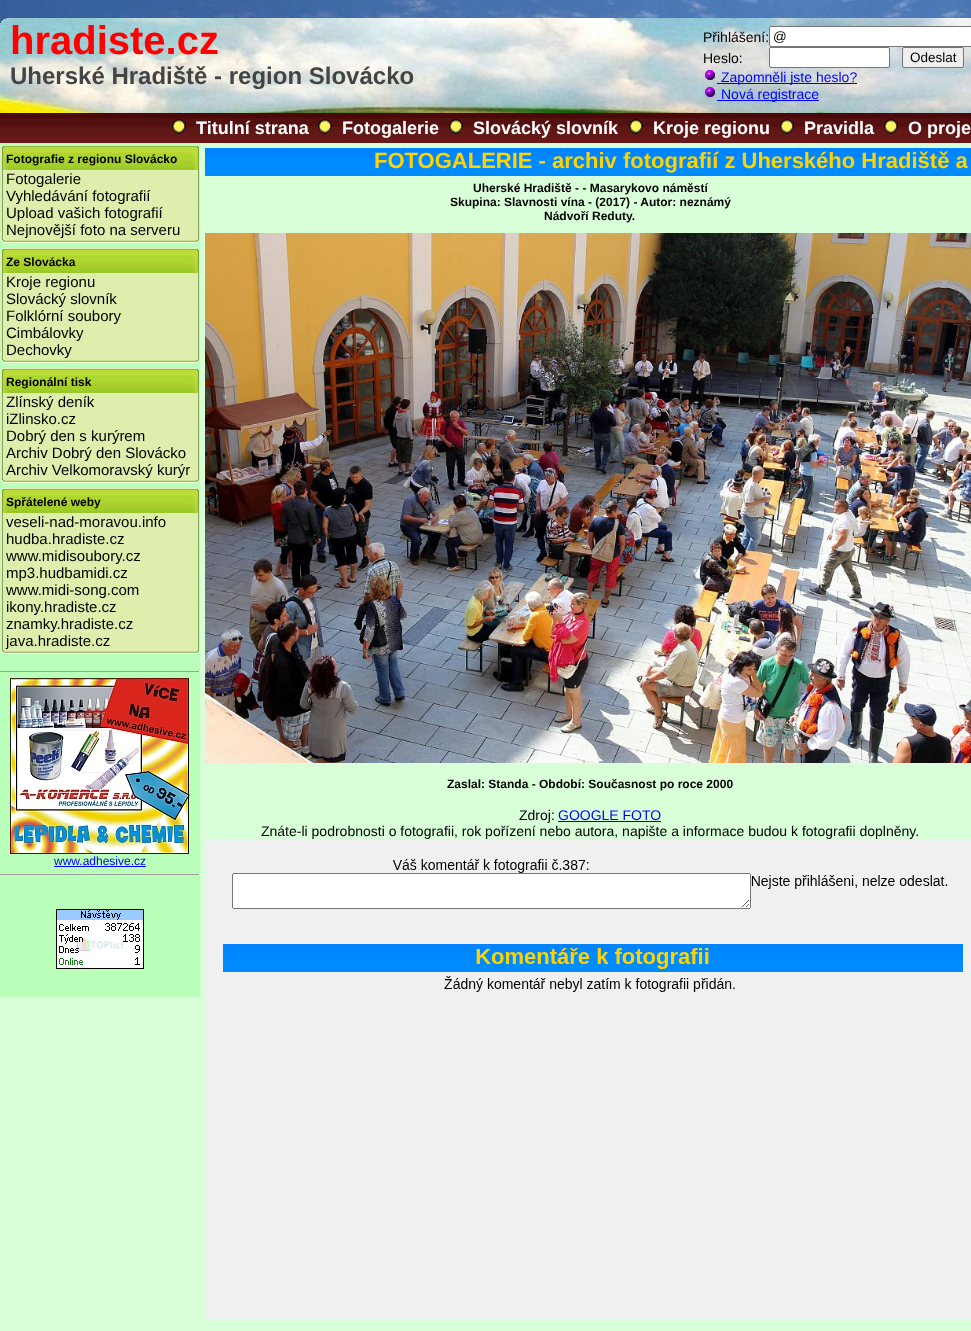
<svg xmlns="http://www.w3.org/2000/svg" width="971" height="1331">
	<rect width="100%" height="100%" fill="#FFFFFF" />
	<image x="0" y="0" width="971" height="18" href="assets/img1.png" />
	<rect x="0" y="143" width="971" height="1188" fill="#D9FFD9" />
	<image x="0" y="18" width="971" height="95" href="assets/img2.png" />
	<text x="10" y="54" font-family="Liberation Sans" font-size="40" font-weight="700" fill="#FF0000">hradiste.cz</text>
	<text x="10" y="84" font-family="Liberation Sans" font-size="24" font-weight="700" fill="#444444">Uherské Hradiště - region Slovácko</text>
	<text x="703" y="42" font-family="Liberation Sans" font-size="14" fill="#000000">Přihlášení:</text>
	<rect x="769.5" y="26.5" width="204" height="20" rx="1.5" fill="#FFFFFF" stroke="#767676" />
	<text x="773" y="41" font-family="Liberation Sans" font-size="13.5" fill="#000000">@</text>
	<text x="703" y="63" font-family="Liberation Sans" font-size="14" fill="#000000">Heslo:</text>
	<rect x="769.5" y="47.5" width="120" height="20" rx="1.5" fill="#FFFFFF" stroke="#767676" />
	<rect x="902.5" y="47.5" width="61" height="20" rx="1.5" fill="#EFEFEF" stroke="#767676" />
	<text x="910" y="62" font-family="Liberation Sans" font-size="13.5" fill="#000000">Odeslat</text>
	<image x="705" y="70" width="10" height="10" href="assets/img3.png" />
	<rect x="717" y="83" width="140" height="1" fill="#0000FF" />
	<text x="721" y="82" font-family="Liberation Sans" font-size="14" fill="#0000FF">Zapomněli jste heslo?</text>
	<image x="705" y="87" width="10" height="10" href="assets/img4.png" />
	<rect x="717" y="100" width="102" height="1" fill="#0000FF" />
	<text x="721" y="99" font-family="Liberation Sans" font-size="14" fill="#0000FF">Nová registrace</text>
	<image x="0" y="113" width="971" height="30" href="assets/img5.png" />
	<image x="172" y="119" width="14" height="15" href="assets/img6.png" />
	<text x="196" y="134" font-family="Liberation Sans" font-size="18" font-weight="700" fill="#FFFFFF">Titulní strana</text>
	<image x="318" y="119" width="14" height="15" href="assets/img6.png" />
	<text x="342" y="134" font-family="Liberation Sans" font-size="18" font-weight="700" fill="#FFFFFF">Fotogalerie</text>
	<image x="449" y="119" width="14" height="15" href="assets/img6.png" />
	<text x="473" y="134" font-family="Liberation Sans" font-size="18" font-weight="700" fill="#FFFFFF">Slovácký slovník</text>
	<image x="629" y="119" width="14" height="15" href="assets/img6.png" />
	<text x="653" y="134" font-family="Liberation Sans" font-size="18" font-weight="700" fill="#FFFFFF">Kroje regionu</text>
	<image x="780" y="119" width="14" height="15" href="assets/img6.png" />
	<text x="804" y="134" font-family="Liberation Sans" font-size="18" font-weight="700" fill="#FFFFFF">Pravidla</text>
	<image x="884" y="119" width="14" height="15" href="assets/img6.png" />
	<text x="908" y="134" font-family="Liberation Sans" font-size="18" font-weight="700" fill="#FFFFFF">O proje</text>
	<rect x="0" y="143" width="200" height="854" fill="#B9FFB9" />
	<image x="0" y="145" width="200" height="25" href="assets/img7.png" />
	<text x="6" y="163" font-family="Liberation Sans" font-size="12" font-weight="700" fill="#000000">Fotografie z regionu Slovácko</text>
	<image x="0" y="170" width="200" height="68" href="assets/img8.png" />
	<g font-family="Liberation Sans" font-size="15" fill="#000000">
		<text x="6" y="184">Fotogalerie</text>
		<text x="6" y="201">Vyhledávání fotografií</text>
		<text x="6" y="218">Upload vašich fotografií</text>
	</g>
	<image x="0" y="238" width="200" height="5" href="assets/img9.png" />
	<text x="6" y="235" font-family="Liberation Sans" font-size="15" fill="#000000">Nejnovější foto na serveru</text>
	<image x="0" y="248" width="200" height="25" href="assets/img7.png" />
	<text x="6" y="266" font-family="Liberation Sans" font-size="12" font-weight="700" fill="#000000">Ze Slovácka</text>
	<image x="0" y="273" width="200" height="85" href="assets/img10.png" />
	<g font-family="Liberation Sans" font-size="15" fill="#000000">
		<text x="6" y="287">Kroje regionu</text>
		<text x="6" y="304">Slovácký slovník</text>
		<text x="6" y="321">Folklórní soubory</text>
		<text x="6" y="338">Cimbálovky</text>
	</g>
	<image x="0" y="358" width="200" height="5" href="assets/img9.png" />
	<text x="6" y="355" font-family="Liberation Sans" font-size="15" fill="#000000">Dechovky</text>
	<image x="0" y="368" width="200" height="25" href="assets/img7.png" />
	<text x="6" y="386" font-family="Liberation Sans" font-size="12" font-weight="700" fill="#000000">Regionální tisk</text>
	<image x="0" y="393" width="200" height="85" href="assets/img10.png" />
	<g font-family="Liberation Sans" font-size="15" fill="#000000">
		<text x="6" y="407">Zlínský deník</text>
		<text x="6" y="424">iZlinsko.cz</text>
		<text x="6" y="441">Dobrý den s kurýrem</text>
		<text x="6" y="458">Archiv Dobrý den Slovácko</text>
	</g>
	<image x="0" y="478" width="200" height="5" href="assets/img9.png" />
	<text x="6" y="475" font-family="Liberation Sans" font-size="15" fill="#000000">Archiv Velkomoravský kurýr</text>
	<image x="0" y="488" width="200" height="25" href="assets/img7.png" />
	<text x="6" y="506" font-family="Liberation Sans" font-size="12" font-weight="700" fill="#000000">Spřátelené weby</text>
	<image x="0" y="513" width="200" height="136" href="assets/img11.png" />
	<g font-family="Liberation Sans" font-size="15" fill="#000000">
		<text x="6" y="527">veseli-nad-moravou.info</text>
		<text x="6" y="544">hudba.hradiste.cz</text>
		<text x="6" y="561">www.midisoubory.cz</text>
		<text x="6" y="578">mp3.hudbamidi.cz</text>
		<text x="6" y="595">www.midi-song.com</text>
		<text x="6" y="612">ikony.hradiste.cz</text>
		<text x="6" y="629">znamky.hradiste.cz</text>
	</g>
	<image x="0" y="649" width="200" height="5" href="assets/img9.png" />
	<text x="6" y="646" font-family="Liberation Sans" font-size="15" fill="#000000">java.hradiste.cz</text>
	<rect x="0" y="671" width="200" height="1" fill="#9F9F9F" />
	<rect x="199" y="671" width="1" height="1" fill="#EEEEEE" />
	<image x="10" y="678" width="180" height="176" href="assets/img12.png" />
	<text x="54" y="865" font-family="Liberation Sans" font-size="12" fill="#0000FF">www.adhesive.cz</text>
	<rect x="54" y="866" width="92" height="1" fill="#0000FF" />
	<rect x="0" y="874" width="200" height="1" fill="#9F9F9F" />
	<rect x="199" y="874" width="1" height="1" fill="#EEEEEE" />
	<image x="56" y="909" width="88" height="60" href="assets/img13.png" />
	<image x="205" y="148" width="766" height="28" href="assets/img14.png" />
	<text x="374" y="168" font-family="Liberation Sans" font-size="22" font-weight="700" fill="#FFD300">FOTOGALERIE - archiv fotografií z Uherského Hradiště a</text>
	<g font-family="Liberation Sans" font-size="12" font-weight="700" fill="#000000">
		<text x="473" y="192">Uherské Hradiště - - Masarykovo náměstí</text>
		<text x="450" y="206">Skupina: Slavnosti vína - (2017) - Autor: neznámý</text>
		<text x="544" y="220">Nádvoří Reduty.</text>
	</g>
	<image x="205" y="233" width="766" height="530" href="assets/img15.png" />
	<text x="447" y="788" font-family="Liberation Sans" font-size="12" font-weight="700" fill="#000000">Zaslal: Standa - Období: Současnost po roce 2000</text>
	<text x="519" y="820" font-family="Liberation Sans" font-size="14" fill="#000000">Zdroj:</text>
	<text x="558" y="820" font-family="Liberation Sans" font-size="14" fill="#0000FF">GOOGLE FOTO</text>
	<rect x="558" y="821" width="103" height="1" fill="#0000FF" />
	<text x="261" y="836" font-family="Liberation Sans" font-size="14" fill="#000000">Znáte-li podrobnosti o fotografii, rok pořízení nebo autora, napište a informace budou k fotografii doplněny.</text>
	<image x="205" y="839" width="766" height="80" href="assets/img16.png" />
	<image x="205" y="919" width="766" height="400" href="assets/img17.png" />
</svg>
